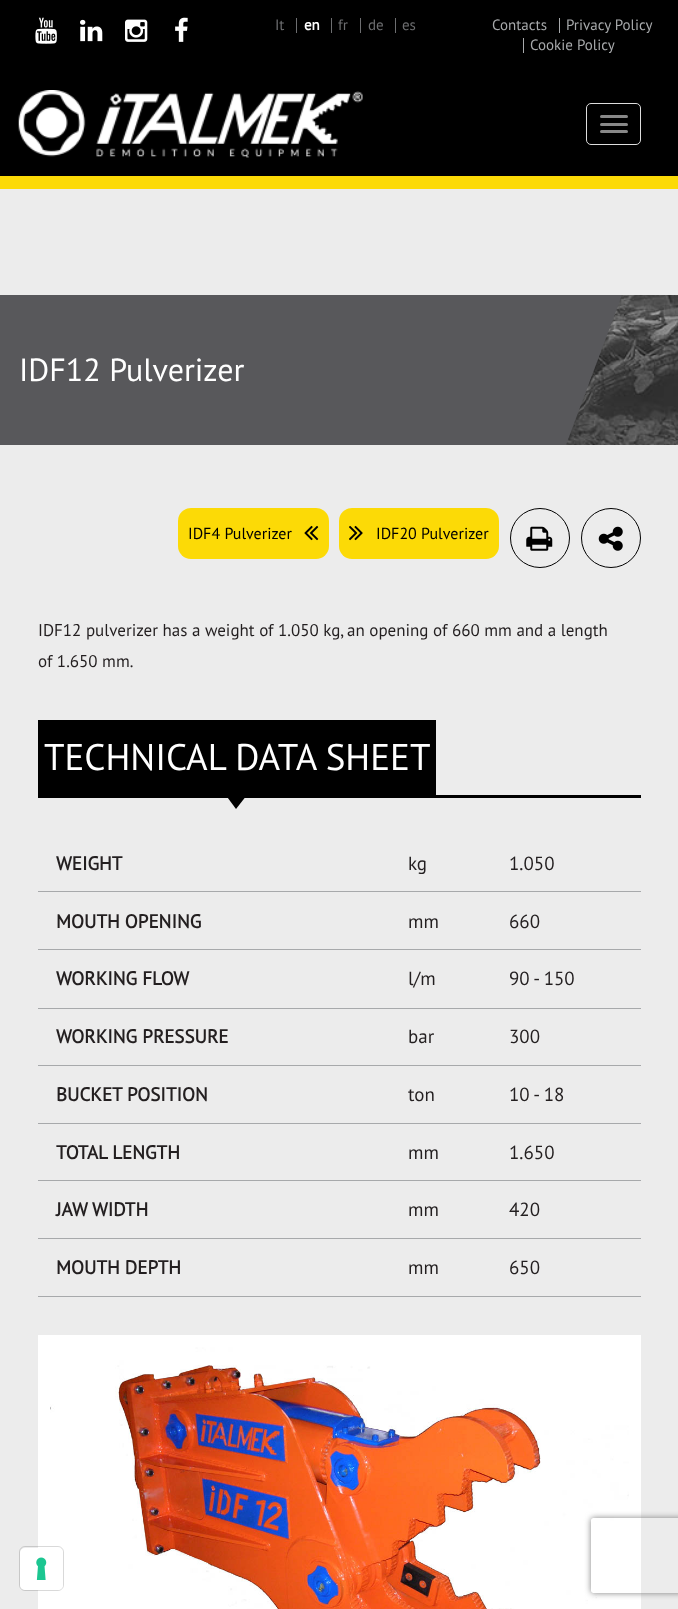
<svg xmlns="http://www.w3.org/2000/svg" width="678" height="1609">
	<defs>
		<clipPath id="clip1"><path d="M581 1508H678V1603H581ZM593.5 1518H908.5C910 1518 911 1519 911 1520.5V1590.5C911 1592 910 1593 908.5 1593H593.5C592 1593 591 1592 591 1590.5V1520.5C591 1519 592 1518 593.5 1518Z" clip-rule="evenodd" /></clipPath>
	</defs>
	<rect width="100%" height="100%" fill="#ECECEC" />
	<rect x="0" y="0" width="678" height="176" fill="#000000" />
	<rect x="0" y="176" width="678" height="13" fill="#FCDA06" />
	<image x="35" y="17" width="22" height="27" href="assets/img1.png" />
	<image x="80" y="19" width="23" height="23" href="assets/img2.png" />
	<image x="125" y="19" width="23" height="23" href="assets/img3.png" />
	<image x="175" y="17" width="13" height="25" href="assets/img4.png" />
	<text x="275" y="30" font-family="PT Sans" font-size="15" fill="#6D6E70">It</text>
	<rect x="296" y="18" width="1" height="15" fill="#6D6E70" />
	<text x="304" y="30" font-family="PT Sans" font-size="15" font-weight="700" fill="#FFFFFF">en</text>
	<rect x="331" y="18" width="1" height="15" fill="#6D6E70" />
	<text x="338" y="30" font-family="PT Sans" font-size="15" fill="#6D6E70">fr</text>
	<rect x="360" y="18" width="1" height="15" fill="#6D6E70" />
	<text x="368" y="30" font-family="PT Sans" font-size="15" fill="#6D6E70">de</text>
	<rect x="395" y="18" width="1" height="15" fill="#6D6E70" />
	<text x="402" y="30" font-family="PT Sans" font-size="15" fill="#6D6E70">es</text>
	<text x="492" y="30" font-family="PT Sans" font-size="15" fill="#A7A9AB">Contacts</text>
	<rect x="559" y="18" width="1" height="15" fill="#A7A9AB" />
	<text x="566" y="30" font-family="PT Sans" font-size="15" fill="#A7A9AB">Privacy Policy</text>
	<rect x="523" y="38" width="1" height="15" fill="#A7A9AB" />
	<text x="530" y="50" font-family="PT Sans" font-size="15" fill="#A7A9AB">Cookie Policy</text>
	<image x="18" y="90" width="345" height="68" href="assets/img5.png" />
	<rect x="586.5" y="103.5" width="54" height="41" rx="4.5" fill="none" stroke="#DDDDDD" />
	<rect x="600" y="115" width="28" height="3" rx="1.5" fill="#888888" />
	<rect x="600" y="123" width="28" height="3" rx="1.5" fill="#888888" />
	<rect x="600" y="130" width="28" height="3" rx="1.5" fill="#888888" />
	<image x="566" y="295" width="112" height="150" href="assets/img6.png" />
	<rect x="0" y="295" width="566" height="150" fill="#58585B" />
	<text x="19" y="381" font-family="PT Sans" font-size="32" fill="#FFFFFF">IDF12 Pulverizer</text>
	<path d="M566 295H622L566 445Z" fill="#58585B" />
	<rect x="178" y="508" width="151" height="51" rx="13" fill="#FCDA06" />
	<text x="188" y="539" font-family="PT Sans" font-size="16" fill="#000000">IDF4 Pulverizer</text>
	<image x="304" y="525" width="15" height="16" href="assets/img7.png" />
	<rect x="339" y="508" width="160" height="51" rx="13" fill="#FCDA06" />
	<image x="349" y="525" width="14" height="16" href="assets/img8.png" />
	<text x="376" y="539" font-family="PT Sans" font-size="16" fill="#000000">IDF20 Pulverizer</text>
	<circle cx="540" cy="538" r="29.5" fill="none" stroke="#000000" />
	<image x="526" y="526" width="27" height="25" href="assets/img9.png" />
	<circle cx="611" cy="538" r="29.5" fill="none" stroke="#000000" />
	<image x="598" y="526" width="25" height="25" href="assets/img10.png" />
	<g font-family="PT Sans" font-size="17" fill="#231F20">
		<text x="38" y="636">IDF12 pulverizer has a weight of 1.050 kg,</text>
		<text x="347" y="636">an opening of 660 mm and a length</text>
		<text x="38" y="667">of 1.650 mm.</text>
	</g>
	<rect x="38" y="795" width="603" height="3" fill="#000000" />
	<rect x="38" y="720" width="398" height="75" fill="#000000" />
	<text x="44" y="770" font-family="PT Sans" font-size="37" fill="#FFFFFF">TECHNICAL DATA SHEET</text>
	<path d="M227.5 797.5H245L236 809Z" fill="#000000" />
	<rect x="38" y="891" width="603" height="1" fill="#A7A9AB" />
	<text x="56" y="870" font-family="PT Sans" font-size="19" font-weight="700" fill="#231F20">WEIGHT</text>
	<g font-family="PT Sans" font-size="19" fill="#231F20">
		<text x="408" y="870">kg</text>
		<text x="509" y="870">1.050</text>
	</g>
	<rect x="38" y="949" width="603" height="1" fill="#A7A9AB" />
	<text x="56" y="928" font-family="PT Sans" font-size="19" font-weight="700" fill="#231F20">MOUTH OPENING</text>
	<g font-family="PT Sans" font-size="19" fill="#231F20">
		<text x="408" y="928">mm</text>
		<text x="509" y="928">660</text>
	</g>
	<rect x="38" y="1008" width="603" height="1" fill="#A7A9AB" />
	<text x="56" y="985" font-family="PT Sans" font-size="19" font-weight="700" fill="#231F20">WORKING FLOW</text>
	<g font-family="PT Sans" font-size="19" fill="#231F20">
		<text x="408" y="985">l/m</text>
		<text x="509" y="985">90 - 150</text>
	</g>
	<rect x="38" y="1065" width="603" height="1" fill="#A7A9AB" />
	<text x="56" y="1043" font-family="PT Sans" font-size="19" font-weight="700" fill="#231F20">WORKING PRESSURE</text>
	<g font-family="PT Sans" font-size="19" fill="#231F20">
		<text x="408" y="1043">bar</text>
		<text x="509" y="1043">300</text>
	</g>
	<rect x="38" y="1123" width="603" height="1" fill="#A7A9AB" />
	<text x="56" y="1101" font-family="PT Sans" font-size="19" font-weight="700" fill="#231F20">BUCKET POSITION</text>
	<g font-family="PT Sans" font-size="19" fill="#231F20">
		<text x="408" y="1101">ton</text>
		<text x="509" y="1101">10 - 18</text>
	</g>
	<rect x="38" y="1180" width="603" height="1" fill="#A7A9AB" />
	<text x="56" y="1159" font-family="PT Sans" font-size="19" font-weight="700" fill="#231F20">TOTAL LENGTH</text>
	<g font-family="PT Sans" font-size="19" fill="#231F20">
		<text x="408" y="1159">mm</text>
		<text x="509" y="1159">1.650</text>
	</g>
	<rect x="38" y="1238" width="603" height="1" fill="#A7A9AB" />
	<text x="56" y="1216" font-family="PT Sans" font-size="19" font-weight="700" fill="#231F20">JAW WIDTH</text>
	<g font-family="PT Sans" font-size="19" fill="#231F20">
		<text x="408" y="1216">mm</text>
		<text x="509" y="1216">420</text>
	</g>
	<rect x="38" y="1296" width="603" height="1" fill="#A7A9AB" />
	<text x="56" y="1274" font-family="PT Sans" font-size="19" font-weight="700" fill="#231F20">MOUTH DEPTH</text>
	<g font-family="PT Sans" font-size="19" fill="#231F20">
		<text x="408" y="1274">mm</text>
		<text x="509" y="1274">650</text>
	</g>
	<rect x="38" y="1335" width="603" height="274" fill="#FFFFFF" />
	<image x="50" y="1347" width="579" height="262" href="assets/img11.png" />
	<rect x="19.5" y="1546.5" width="44" height="44" rx="5.5" fill="none" stroke="#000000" stroke-opacity="0.15" />
	<rect x="20" y="1548" width="43" height="42" rx="5" fill="#FFFFFF" />
	<image x="36" y="1557" width="11" height="23" href="assets/img12.png" />
	<g clip-path="url(#clip1)">
		<rect x="591" y="1518" width="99" height="75" rx="2.5" fill="#808080" filter="blur(3px)" />
	</g>
</svg>
